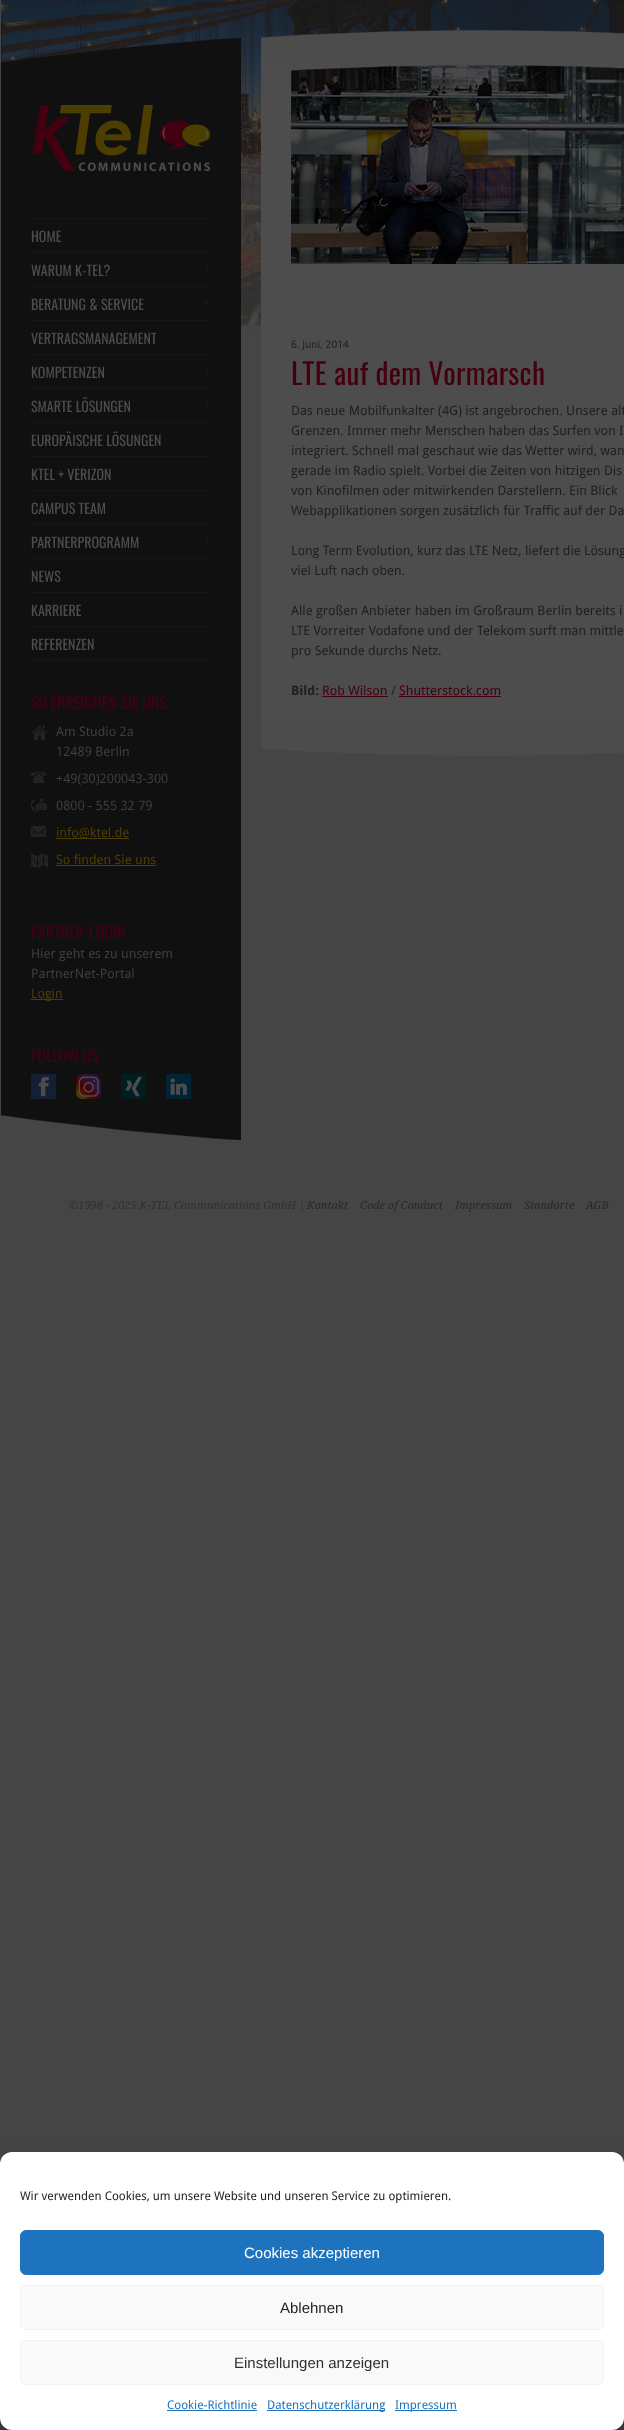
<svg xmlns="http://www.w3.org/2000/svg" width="624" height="2430">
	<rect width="100%" height="100%" fill="#454545" />
	<image x="1" y="0" width="623" height="326" href="assets/img1.png" />
	<image x="241" y="157" width="20" height="176" href="assets/img2.png" />
	<image x="1" y="38" width="240" height="26" href="assets/img3.png" />
	<rect x="1" y="64" width="240" height="1051" fill="#101010" />
	<image x="33" y="105" width="177" height="66" href="assets/img4.png" />
	<rect x="31" y="218" width="180" height="1" fill="#161616" />
	<rect x="31" y="252" width="180" height="1" fill="#161616" />
	<text x="31" y="242" font-family="Oswald" font-size="14" fill="#4D4D4D">HOME</text>
	<rect x="31" y="286" width="180" height="1" fill="#161616" />
	<image x="204" y="266" width="7" height="7" href="assets/img5.png" />
	<text x="31" y="276" font-family="Oswald" font-size="14" fill="#4D4D4D">WARUM K-TEL?</text>
	<rect x="31" y="320" width="180" height="1" fill="#161616" />
	<image x="204" y="300" width="7" height="7" href="assets/img5.png" />
	<text x="31" y="310" font-family="Oswald" font-size="14" fill="#4D4D4D">BERATUNG &amp; SERVICE</text>
	<rect x="31" y="354" width="180" height="1" fill="#161616" />
	<text x="31" y="344" font-family="Oswald" font-size="14" fill="#4D4D4D">VERTRAGSMANAGEMENT</text>
	<rect x="31" y="388" width="180" height="1" fill="#161616" />
	<image x="204" y="368" width="7" height="7" href="assets/img5.png" />
	<text x="31" y="378" font-family="Oswald" font-size="14" fill="#4D4D4D">KOMPETENZEN</text>
	<rect x="31" y="422" width="180" height="1" fill="#161616" />
	<image x="204" y="402" width="7" height="7" href="assets/img5.png" />
	<text x="31" y="412" font-family="Oswald" font-size="14" fill="#4D4D4D">SMARTE LÖSUNGEN</text>
	<rect x="31" y="456" width="180" height="1" fill="#161616" />
	<text x="31" y="446" font-family="Oswald" font-size="14" fill="#4D4D4D">EUROPÄISCHE LÖSUNGEN</text>
	<rect x="31" y="490" width="180" height="1" fill="#161616" />
	<text x="31" y="480" font-family="Oswald" font-size="14" fill="#4D4D4D">KTEL + VERIZON</text>
	<rect x="31" y="524" width="180" height="1" fill="#161616" />
	<text x="31" y="514" font-family="Oswald" font-size="14" fill="#4D4D4D">CAMPUS TEAM</text>
	<rect x="31" y="558" width="180" height="1" fill="#161616" />
	<image x="204" y="538" width="7" height="7" href="assets/img5.png" />
	<text x="31" y="548" font-family="Oswald" font-size="14" fill="#4D4D4D">PARTNERPROGRAMM</text>
	<rect x="31" y="592" width="180" height="1" fill="#161616" />
	<text x="31" y="582" font-family="Oswald" font-size="14" fill="#4D4D4D">NEWS</text>
	<rect x="31" y="626" width="180" height="1" fill="#161616" />
	<text x="31" y="616" font-family="Oswald" font-size="14" fill="#4D4D4D">KARRIERE</text>
	<rect x="31" y="660" width="180" height="1" fill="#161616" />
	<text x="31" y="650" font-family="Oswald" font-size="14" fill="#4D4D4D">REFERENZEN</text>
	<text x="31" y="709" font-family="Oswald" font-size="16" fill="#440011">SO ERREICHEN SIE UNS</text>
	<image x="31" y="725" width="17" height="15" href="assets/img6.png" />
	<g font-family="Droid Sans" font-size="13" fill="#3E3E3E">
		<text x="56" y="736">Am Studio 2a</text>
		<text x="56" y="756">12489 Berlin</text>
	</g>
	<image x="31" y="772" width="15" height="11" href="assets/img7.png" />
	<text x="56" y="783" font-family="Droid Sans" font-size="13" fill="#3E3E3E">+49(30)200043-300</text>
	<image x="31" y="799" width="16" height="13" href="assets/img8.png" />
	<text x="56" y="810" font-family="Droid Sans" font-size="13" fill="#3E3E3E">0800 - 555 32 79</text>
	<image x="31" y="826" width="15" height="11" href="assets/img9.png" />
	<rect x="56" y="838" width="73" height="1" fill="#4C3F00" />
	<text x="56" y="837" font-family="Droid Sans" font-size="13" fill="#4C3F00">info@ktel.de</text>
	<image x="31" y="853" width="17" height="15" href="assets/img10.png" />
	<text x="56" y="864" font-family="Droid Sans" font-size="13" fill="#4C3F00">So finden Sie uns</text>
	<rect x="56" y="865" width="100" height="1" fill="#4C3F00" />
	<text x="31" y="938" font-family="Oswald" font-size="16" fill="#440011">PARTNER-LOGIN</text>
	<g font-family="Droid Sans" font-size="13" fill="#3E3E3E">
		<text x="31" y="958">Hier geht es zu unserem</text>
		<text x="31" y="978">PartnerNet-Portal</text>
	</g>
	<rect x="31" y="999" width="32" height="1" fill="#4C3F00" />
	<text x="31" y="998" font-family="Droid Sans" font-size="13" fill="#4C3F00">Login</text>
	<text x="31" y="1062" font-family="Oswald" font-size="16" fill="#440011">FOLLOW US</text>
	<image x="31" y="1074" width="25" height="25" href="assets/img11.png" />
	<image x="76" y="1074" width="25" height="25" href="assets/img12.png" />
	<image x="121" y="1074" width="25" height="25" href="assets/img13.png" />
	<image x="166" y="1074" width="25" height="25" href="assets/img14.png" />
	<image x="1" y="1115" width="240" height="25" href="assets/img15.png" />
	<image x="261" y="30" width="363" height="34" href="assets/img16.png" />
	<rect x="261" y="64" width="363" height="658" fill="#4D4D4D" />
	<image x="291" y="65" width="333" height="199" href="assets/img18.png" />
	<image x="291" y="64" width="333" height="7" href="assets/img17.png" />
	<text x="291" y="348" font-family="Droid Sans" font-size="10.5" fill="#1F1F1F">6. Juni, 2014</text>
	<text x="291" y="385" font-family="Oswald" font-size="29.25" letter-spacing="0.3" fill="#440011">LTE auf dem Vormarsch</text>
	<g font-family="Droid Sans" font-size="13" fill="#1F1F1F">
		<text x="291" y="415">Das neue Mobilfunkalter (4G) ist angebrochen. Unsere alt</text>
		<text x="291" y="435">Grenzen. Immer mehr Menschen haben das Surfen von I</text>
		<text x="291" y="455">integriert. Schnell mal geschaut wie das Wetter wird, wan</text>
		<text x="291" y="475">gerade im Radio spielt. Vorbei die Zeiten von hitzigen Dis</text>
		<text x="291" y="495">von Kinofilmen oder mitwirkenden Darstellern. Ein Blick</text>
		<text x="291" y="515">Webapplikationen sorgen zusätzlich für Traffic auf der Da</text>
		<text x="291" y="555">Long Term Evolution, kurz das LTE Netz, liefert die Lösung</text>
		<text x="291" y="575">viel Luft nach oben.</text>
		<text x="291" y="615">Alle großen Anbieter haben im Großraum Berlin bereits i</text>
		<text x="291" y="635">LTE Vorreiter Vodafone und der Telekom surft man mittle</text>
		<text x="291" y="655">pro Sekunde durchs Netz.</text>
	</g>
	<text x="291" y="695" font-family="Droid Sans" font-size="13" font-weight="700" fill="#1F1F1F">Bild:</text>
	<text x="322" y="695" font-family="Droid Sans" font-size="13" fill="#440011">Rob Wilson</text>
	<rect x="322" y="696" width="66" height="1" fill="#440011" />
	<text x="391" y="695" font-family="Droid Sans" font-size="13" fill="#1F1F1F">/</text>
	<text x="399" y="695" font-family="Droid Sans" font-size="13" fill="#440011">Shutterstock.com</text>
	<rect x="399" y="696" width="102" height="1" fill="#440011" />
	<image x="261" y="722" width="363" height="34" href="assets/img19.png" />
	<text x="69" y="1209" font-family="Droid Serif" font-size="11" font-style="italic" fill="#303030">©1998 - 2025 K-TEL Communications GmbH |</text>
	<g font-family="Droid Serif" font-size="11" font-style="italic" fill="#282828">
		<text x="307" y="1209">Kontakt</text>
		<text x="360" y="1209">Code of Conduct</text>
		<text x="455" y="1209">Impressum</text>
		<text x="524" y="1209">Standorte</text>
		<text x="586" y="1209">AGB</text>
	</g>
	<rect x="0" y="2158" width="624" height="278" rx="12" fill="#000000" fill-opacity="0.23" filter="blur(3px)" />
	<rect x="0" y="2162" width="624" height="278" rx="12" fill="#000000" fill-opacity="0.19" filter="blur(10px)" />
	<rect x="0" y="2152" width="624" height="278" rx="12" fill="#FFFFFF" />
	<text x="20" y="2200" font-family="Droid Sans" font-size="12" fill="#1F1F1F">Wir verwenden Cookies, um unsere Website und unseren Service zu optimieren.</text>
	<rect x="20.5" y="2230.5" width="583" height="44" rx="5.5" fill="#1E73BE" stroke="#1E73BE" />
	<text x="244" y="2258" font-family="Liberation Sans" font-size="15" fill="#FFFFFF">Cookies akzeptieren</text>
	<rect x="20.5" y="2285.5" width="583" height="44" rx="5.5" fill="#F9F9F9" stroke="#F2F2F2" />
	<text x="280" y="2313" font-family="Liberation Sans" font-size="15" fill="#1F1F1F">Ablehnen</text>
	<rect x="20.5" y="2340.5" width="583" height="44" rx="5.5" fill="#F9F9F9" stroke="#F2F2F2" />
	<text x="234" y="2368" font-family="Liberation Sans" font-size="15" fill="#303030">Einstellungen anzeigen</text>
	<text x="167" y="2409" font-family="Droid Sans" font-size="12" fill="#1E73BE">Cookie-Richtlinie</text>
	<rect x="167" y="2410" width="90" height="1" fill="#1E73BE" />
	<rect x="267" y="2410" width="118" height="1" fill="#1E73BE" />
	<text x="267" y="2409" font-family="Droid Sans" font-size="12" fill="#1E73BE">Datenschutzerklärung</text>
	<rect x="395" y="2410" width="62" height="1" fill="#1E73BE" />
	<text x="395" y="2409" font-family="Droid Sans" font-size="12" fill="#1E73BE">Impressum</text>
</svg>
